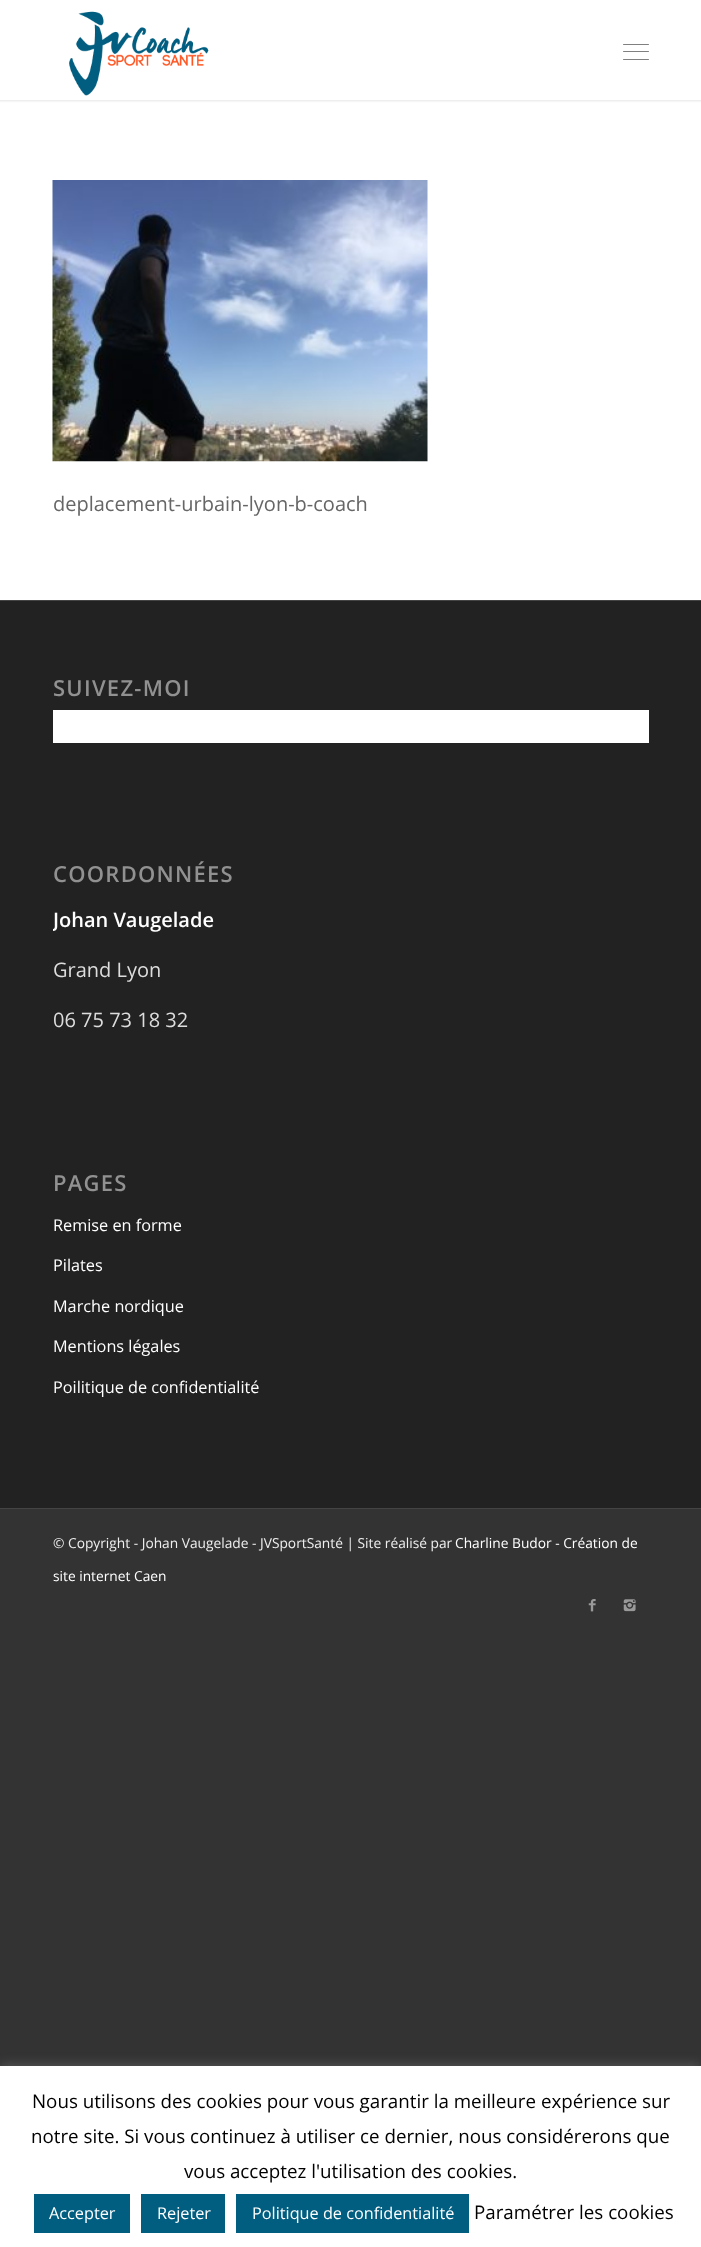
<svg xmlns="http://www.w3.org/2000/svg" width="701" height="2247">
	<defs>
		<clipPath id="clip1"><rect x="53" y="843" width="596" height="210" /></clipPath>
	</defs>
	<rect width="100%" height="100%" fill="#333333" />
	<rect x="0" y="100" width="701" height="500" fill="#FFFFFF" />
	<rect x="-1" y="-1" width="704" height="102" fill="#000000" fill-opacity="0.1" filter="blur(1px)" />
	<rect x="0" y="0" width="701" height="100" fill="#FFFFFF" />
	<image x="69" y="11" width="140" height="85" href="assets/img1.png" />
	<rect x="623" y="51" width="26" height="1" rx="0.5" fill="#808080" />
	<rect x="623" y="44" width="26" height="1" rx="0.5" fill="#808080" />
	<rect x="623" y="59" width="26" height="1" rx="0.5" fill="#808080" />
	<image x="52" y="180" width="376" height="282" href="assets/img2.png" />
	<text x="53" y="511" font-family="Open Sans" font-size="20" fill="#666666">deplacement-urbain-lyon-b-coach</text>
	<rect x="0" y="601" width="701" height="907" fill="#222222" />
	<rect x="0" y="600" width="701" height="1" fill="#444444" />
	<text x="53" y="696" font-family="Open Sans" font-size="22" font-weight="600" letter-spacing="1.25" fill="#919191">SUIVEZ-MOI</text>
	<rect x="53" y="710" width="596" height="33" fill="#FFFFFF" />
	<text x="53" y="882" font-family="Open Sans" font-size="22" font-weight="600" letter-spacing="1.25" fill="#919191">COORDONNÉES</text>
	<g clip-path="url(#clip1)">
		<text x="53" y="927" font-family="Open Sans" font-size="20" font-weight="600" fill="#FFFFFF">Johan Vaugelade</text>
	</g>
	<g font-family="Open Sans" font-size="20" fill="#DDDDDD">
		<text x="53" y="977">Grand Lyon</text>
		<text x="53" y="1027">06 75 73 18 32</text>
	</g>
	<text x="53" y="1191" font-family="Open Sans" font-size="22" font-weight="600" letter-spacing="1.25" fill="#919191">PAGES</text>
	<g font-family="Open Sans" font-size="16.25" fill="#FFFFFF">
		<text x="53" y="1231">Remise en forme</text>
		<text x="53" y="1271">Pilates</text>
		<text x="53" y="1312">Marche nordique</text>
		<text x="53" y="1352">Mentions légales</text>
		<text x="53" y="1393">Poilitique de confidentialité</text>
	</g>
	<rect x="0" y="1508" width="701" height="1" fill="#444444" />
	<text x="53" y="1548" font-family="Open Sans" font-size="13.75" fill="#EEEEEE">© Copyright - Johan Vaugelade - JVSportSanté | Site réalisé par</text>
	<g font-family="Open Sans" font-size="13.75" fill="#FFFFFF">
		<text x="455" y="1548">Charline Budor - Création de</text>
		<text x="53" y="1581">site internet Caen</text>
	</g>
	<image x="588" y="1599" width="8" height="13" href="assets/img3.png" />
	<image x="623" y="1599" width="13" height="13" href="assets/img4.png" />
	<rect x="0" y="2065" width="701" height="181" fill="#ACABAB" fill-opacity="0.3" filter="blur(6px)" />
	<rect x="0" y="2066" width="701" height="181" fill="#FFFFFF" />
	<g font-family="Open Sans" font-size="18.75" fill="#000000">
		<text x="32" y="2108">Nous utilisons des cookies pour vous garantir la meilleure expérience sur</text>
		<text x="31" y="2143">notre site. Si vous continuez à utiliser ce dernier, nous considérerons que</text>
		<text x="184" y="2178">vous acceptez l'utilisation des cookies.</text>
	</g>
	<rect x="34" y="2194" width="96" height="39" fill="#015E80" />
	<text x="49" y="2219" font-family="Open Sans" font-size="16.25" fill="#FFFFFF">Accepter</text>
	<rect x="141" y="2194" width="84" height="39" fill="#015E80" />
	<text x="157" y="2219" font-family="Open Sans" font-size="16.25" fill="#FFFFFF">Rejeter</text>
	<rect x="236" y="2194" width="233" height="39" fill="#015E80" />
	<text x="252" y="2219" font-family="Open Sans" font-size="16.25" fill="#FFFFFF">Politique de confidentialité</text>
	<text x="474" y="2219" font-family="Open Sans" font-size="18.75" fill="#000000">Paramétrer les cookies</text>
</svg>
